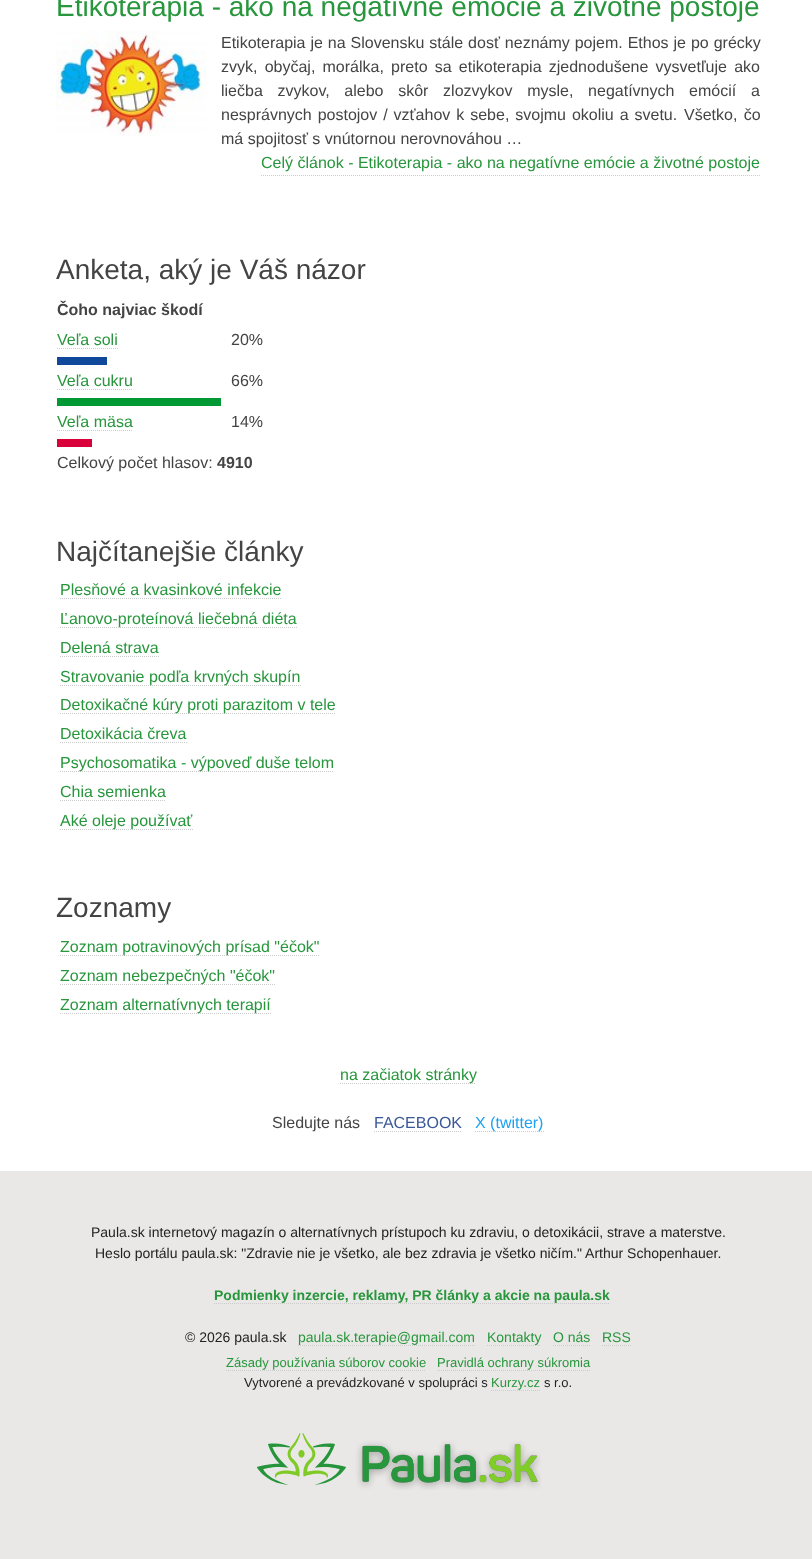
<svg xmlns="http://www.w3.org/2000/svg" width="812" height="1559">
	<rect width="100%" height="100%" fill="#FFFFFF" />
	<text x="56" y="16" font-family="Liberation Sans" font-size="28" fill="#27963C">Etikoterapia - ako na negatívne emócie a životné postoje</text>
	<image x="56" y="31" width="150" height="105" href="assets/img1.png" />
	<g font-family="Liberation Sans" font-size="16" fill="#444444">
		<text x="221" y="48" word-spacing="0.5">Etikoterapia je na Slovensku stále dosť neznámy pojem. Ethos je po grécky</text>
		<text x="221" y="72" word-spacing="2.75">zvyk, obyčaj, morálka, preto sa etikoterapia zjednodušene vysvetľuje ako</text>
		<text x="221" y="96" word-spacing="10.25">liečba zvykov, alebo skôr zlozvykov mysle, negatívnych emócií a</text>
		<text x="221" y="120" word-spacing="1.5">nesprávnych postojov / vzťahov k sebe, svojmu okoliu a svetu.</text>
		<text x="684" y="120" word-spacing="2">Všetko, čo</text>
		<text x="221" y="144">má spojitosť s vnútornou nerovnováhou …</text>
	</g>
	<path d="M261 175.5H760" fill="none" stroke="#CCCCCC" stroke-dasharray="1 1" />
	<text x="261" y="168" font-family="Liberation Sans" font-size="16" fill="#27963C">Celý článok - Etikoterapia - ako na negatívne emócie a životné postoje</text>
	<text x="56" y="279" font-family="Liberation Sans" font-size="28" fill="#444444">Anketa, aký je Váš názor</text>
	<text x="57" y="315" font-family="Liberation Sans" font-size="16" font-weight="700" fill="#444444">Čoho najviac škodí</text>
	<text x="57" y="345" font-family="Liberation Sans" font-size="16" fill="#27963C">Veľa soli</text>
	<path d="M57 348.5H118" fill="none" stroke="#CCCCCC" stroke-dasharray="1 1" />
	<text x="231" y="345" font-family="Liberation Sans" font-size="16" fill="#444444">20%</text>
	<rect x="57" y="357" width="50" height="8" fill="#10489B" />
	<text x="57" y="386" font-family="Liberation Sans" font-size="16" fill="#27963C">Veľa cukru</text>
	<path d="M57 389.5H133" fill="none" stroke="#CCCCCC" stroke-dasharray="1 1" />
	<text x="231" y="386" font-family="Liberation Sans" font-size="16" fill="#444444">66%</text>
	<rect x="57" y="398" width="164" height="8" fill="#009933" />
	<text x="57" y="427" font-family="Liberation Sans" font-size="16" fill="#27963C">Veľa mäsa</text>
	<path d="M57 430.5H133" fill="none" stroke="#CCCCCC" stroke-dasharray="1 1" />
	<text x="231" y="427" font-family="Liberation Sans" font-size="16" fill="#444444">14%</text>
	<rect x="57" y="439" width="35" height="8" fill="#D8013A" />
	<text x="57" y="468" font-family="Liberation Sans" font-size="16" fill="#444444">Celkový počet hlasov:</text>
	<text x="217" y="468" font-family="Liberation Sans" font-size="16" font-weight="700" fill="#444444">4910</text>
	<text x="56" y="561" font-family="Liberation Sans" font-size="28" fill="#444444">Najčítanejšie články</text>
	<text x="60" y="595" font-family="Liberation Sans" font-size="16" fill="#27963C">Plesňové a kvasinkové infekcie</text>
	<path d="M60 598.5H282" fill="none" stroke="#CCCCCC" stroke-dasharray="1 1" />
	<path d="M60 627.5H297" fill="none" stroke="#CCCCCC" stroke-dasharray="1 1" />
	<g font-family="Liberation Sans" font-size="16" fill="#27963C">
		<text x="60" y="624">Ľanovo-proteínová liečebná diéta</text>
		<text x="60" y="653">Delená strava</text>
	</g>
	<path d="M60 656.5H159" fill="none" stroke="#CCCCCC" stroke-dasharray="1 1" />
	<path d="M60 685.5H301" fill="none" stroke="#CCCCCC" stroke-dasharray="1 1" />
	<text x="60" y="682" font-family="Liberation Sans" font-size="16" fill="#27963C">Stravovanie podľa krvných skupín</text>
	<path d="M60 713.5H336" fill="none" stroke="#CCCCCC" stroke-dasharray="1 1" />
	<g font-family="Liberation Sans" font-size="16" fill="#27963C">
		<text x="60" y="710">Detoxikačné kúry proti parazitom v tele</text>
		<text x="60" y="739">Detoxikácia čreva</text>
	</g>
	<path d="M60 742.5H187" fill="none" stroke="#CCCCCC" stroke-dasharray="1 1" />
	<path d="M60 771.5H334" fill="none" stroke="#CCCCCC" stroke-dasharray="1 1" />
	<g font-family="Liberation Sans" font-size="16" fill="#27963C">
		<text x="60" y="768">Psychosomatika - výpoveď duše telom</text>
		<text x="60" y="797">Chia semienka</text>
	</g>
	<path d="M60 800.5H166" fill="none" stroke="#CCCCCC" stroke-dasharray="1 1" />
	<path d="M60 829.5H193" fill="none" stroke="#CCCCCC" stroke-dasharray="1 1" />
	<text x="60" y="826" font-family="Liberation Sans" font-size="16" fill="#27963C">Aké oleje používať</text>
	<text x="56" y="917" font-family="Liberation Sans" font-size="28" fill="#444444">Zoznamy</text>
	<path d="M60 955.5H320" fill="none" stroke="#CCCCCC" stroke-dasharray="1 1" />
	<text x="60" y="952" font-family="Liberation Sans" font-size="16" fill="#27963C">Zoznam potravinových prísad "éčok"</text>
	<path d="M60 984.5H275" fill="none" stroke="#CCCCCC" stroke-dasharray="1 1" />
	<text x="60" y="981" font-family="Liberation Sans" font-size="16" fill="#27963C">Zoznam nebezpečných "éčok"</text>
	<path d="M60 1013.5H271" fill="none" stroke="#CCCCCC" stroke-dasharray="1 1" />
	<text x="60" y="1010" font-family="Liberation Sans" font-size="16" fill="#27963C">Zoznam alternatívnych terapií</text>
	<path d="M340 1083.5H476" fill="none" stroke="#CCCCCC" stroke-dasharray="1 1" />
	<text x="340" y="1080" font-family="Liberation Sans" font-size="16" fill="#27963C">na začiatok stránky</text>
	<text x="272" y="1128" font-family="Liberation Sans" font-size="16" fill="#444444">Sledujte nás</text>
	<text x="374" y="1128" font-family="Liberation Sans" font-size="16" fill="#3B5998">FACEBOOK</text>
	<path d="M374 1131.5H462" fill="none" stroke="#CCCCCC" stroke-dasharray="1 1" />
	<path d="M475 1131.5H544" fill="none" stroke="#CCCCCC" stroke-dasharray="1 1" />
	<text x="475" y="1128" font-family="Liberation Sans" font-size="16" fill="#1DA1F2">X (twitter)</text>
	<rect x="0" y="1171" width="812" height="388" fill="#E9E8E6" />
	<g font-family="Liberation Sans" font-size="14" fill="#222222">
		<text x="91" y="1237">Paula.sk internetový magazín o alternatívnych prístupoch ku zdraviu, o detoxikácii, strave a materstve.</text>
		<text x="95" y="1258">Heslo portálu paula.sk: "Zdravie nie je všetko, ale bez zdravia je všetko ničím." Arthur Schopenhauer.</text>
	</g>
	<text x="214" y="1300" font-family="Liberation Sans" font-size="14" font-weight="700" fill="#27963C">Podmienky inzercie, reklamy, PR články a akcie na paula.sk</text>
	<path d="M214 1303.5H610" fill="none" stroke="#CCCCCC" stroke-dasharray="1 1" />
	<text x="185" y="1342" font-family="Liberation Sans" font-size="14" fill="#222222">© 2026 paula.sk</text>
	<text x="298" y="1342" font-family="Liberation Sans" font-size="14" fill="#27963C">paula.sk.terapie@gmail.com</text>
	<path d="M298 1345.5H475" fill="none" stroke="#CCCCCC" stroke-dasharray="1 1" />
	<text x="487" y="1342" font-family="Liberation Sans" font-size="14" fill="#27963C">Kontakty</text>
	<path d="M487 1345.5H541" fill="none" stroke="#CCCCCC" stroke-dasharray="1 1" />
	<text x="553" y="1342" font-family="Liberation Sans" font-size="14" fill="#27963C">O nás</text>
	<path d="M553 1345.5H590" fill="none" stroke="#CCCCCC" stroke-dasharray="1 1" />
	<text x="602" y="1342" font-family="Liberation Sans" font-size="14" fill="#27963C">RSS</text>
	<path d="M602 1345.5H631" fill="none" stroke="#CCCCCC" stroke-dasharray="1 1" />
	<text x="226" y="1367" font-family="Liberation Sans" font-size="13" fill="#27963C">Zásady používania súborov cookie</text>
	<path d="M226 1370.5H426" fill="none" stroke="#CCCCCC" stroke-dasharray="1 1" />
	<text x="437" y="1367" font-family="Liberation Sans" font-size="13" fill="#27963C">Pravidlá ochrany súkromia</text>
	<path d="M437 1370.5H590" fill="none" stroke="#CCCCCC" stroke-dasharray="1 1" />
	<text x="244" y="1387" font-family="Liberation Sans" font-size="13" fill="#222222">Vytvorené a prevádzkované v spolupráci s</text>
	<text x="491" y="1387" font-family="Liberation Sans" font-size="13" fill="#27963C">Kurzy.cz</text>
	<path d="M491 1390.5H540" fill="none" stroke="#CCCCCC" stroke-dasharray="1 1" />
	<text x="544" y="1387" font-family="Liberation Sans" font-size="13" fill="#222222">s r.o.</text>
	<image x="256" y="1433" width="285" height="57" href="assets/img2.png" />
</svg>
